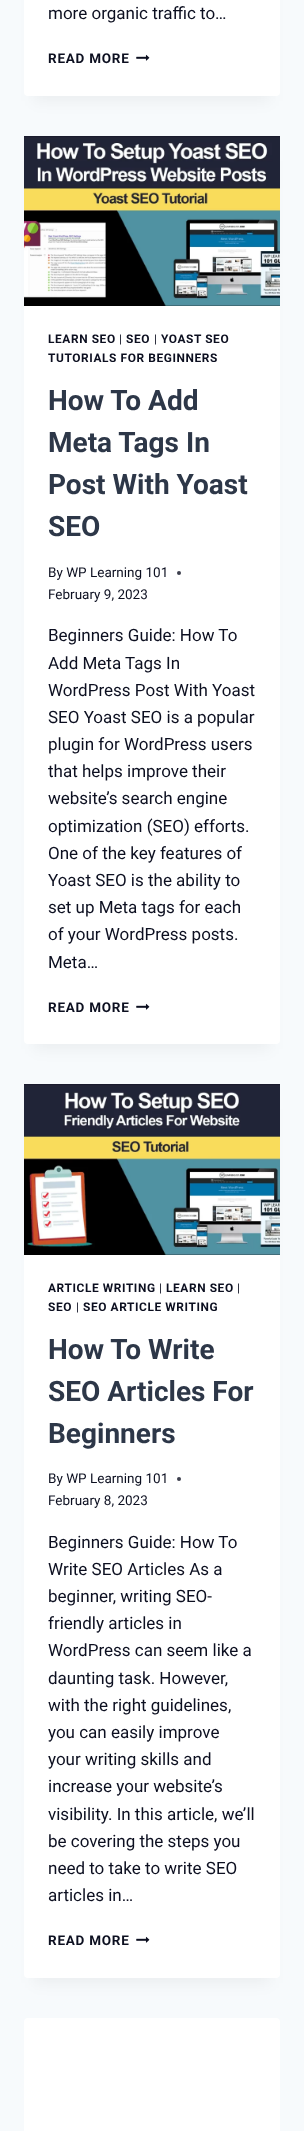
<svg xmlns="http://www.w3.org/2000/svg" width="304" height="2131">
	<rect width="100%" height="100%" fill="#F7FAFC" />
	<rect x="34" y="-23" width="236" height="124" fill="#000000" fill-opacity="0.05" filter="blur(7.5px)" />
	<rect x="24" y="-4" width="256" height="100" rx="4" fill="#FFFFFF" />
	<text x="48" y="19" font-family="Roboto" font-size="17" fill="#0C0F20">more organic traffic to…</text>
	<text x="48" y="63" font-family="Roboto" font-size="13.5" font-weight="700" letter-spacing="0.75" fill="#0C0F20">READ MORE</text>
	<image x="136" y="54" width="14" height="7" href="assets/img1.png" />
	<rect x="34" y="161" width="236" height="888" fill="#000000" fill-opacity="0.05" filter="blur(7.5px)" />
	<rect x="24" y="136" width="256" height="908" rx="4" fill="#FFFFFF" />
	<image x="24" y="136" width="256" height="170" href="assets/img2.png" />
	<text x="48" y="343" font-family="Roboto" font-size="11.9" font-weight="700" letter-spacing="0.6" fill="#0C0F20">LEARN SEO</text>
	<text x="119" y="343" font-family="Roboto" font-size="11.9" letter-spacing="0.6" fill="#0C0F20">|</text>
	<text x="126" y="343" font-family="Roboto" font-size="11.9" font-weight="700" letter-spacing="0.6" fill="#0C0F20">SEO</text>
	<text x="154" y="343" font-family="Roboto" font-size="11.9" letter-spacing="0.6" fill="#0C0F20">|</text>
	<g font-family="Roboto" font-size="11.9" font-weight="700" letter-spacing="0.6" fill="#0C0F20">
		<text x="161" y="343">YOAST SEO</text>
		<text x="48" y="362">TUTORIALS FOR BEGINNERS</text>
	</g>
	<g font-family="Roboto" font-size="28" font-weight="700" fill="#2D3748">
		<text x="48" y="410">How To Add</text>
		<text x="48" y="452">Meta Tags In</text>
		<text x="48" y="494">Post With Yoast</text>
		<text x="48" y="536">SEO</text>
	</g>
	<text x="48" y="577" font-family="Roboto" font-size="13.5" fill="#0C0F20">By WP Learning 101</text>
	<circle cx="179" cy="573" r="2" fill="#3D3F4D" />
	<text x="48" y="599" font-family="Roboto" font-size="13.5" fill="#0C0F20">February 9, 2023</text>
	<g font-family="Roboto" font-size="17" fill="#0C0F20">
		<text x="48" y="641">Beginners Guide: How To</text>
		<text x="48" y="669">Add Meta Tags In</text>
		<text x="48" y="696">WordPress Post With Yoast</text>
		<text x="48" y="723">SEO Yoast SEO is a popular</text>
		<text x="48" y="750">plugin for WordPress users</text>
		<text x="48" y="777">that helps improve their</text>
		<text x="48" y="804">website’s search engine</text>
		<text x="48" y="832">optimization (SEO) efforts.</text>
		<text x="48" y="859">One of the key features of</text>
		<text x="48" y="886">Yoast SEO is the ability to</text>
		<text x="48" y="913">set up Meta tags for each</text>
		<text x="48" y="940">of your WordPress posts.</text>
		<text x="48" y="968">Meta…</text>
	</g>
	<text x="48" y="1012" font-family="Roboto" font-size="13.5" font-weight="700" letter-spacing="0.75" fill="#0C0F20">READ MORE</text>
	<image x="136" y="1003" width="14" height="7" href="assets/img1.png" />
	<rect x="34" y="1109" width="236" height="874" fill="#000000" fill-opacity="0.05" filter="blur(7.5px)" />
	<rect x="24" y="1084" width="256" height="894" rx="4" fill="#FFFFFF" />
	<image x="24" y="1084" width="256" height="171" href="assets/img3.png" />
	<text x="48" y="1292" font-family="Roboto" font-size="11.9" font-weight="700" letter-spacing="0.6" fill="#0C0F20">ARTICLE WRITING</text>
	<text x="159" y="1292" font-family="Roboto" font-size="11.9" letter-spacing="0.6" fill="#0C0F20">|</text>
	<text x="166" y="1292" font-family="Roboto" font-size="11.9" font-weight="700" letter-spacing="0.6" fill="#0C0F20">LEARN SEO</text>
	<text x="237" y="1292" font-family="Roboto" font-size="11.9" letter-spacing="0.6" fill="#0C0F20">|</text>
	<text x="48" y="1311" font-family="Roboto" font-size="11.9" font-weight="700" letter-spacing="0.6" fill="#0C0F20">SEO</text>
	<text x="76" y="1311" font-family="Roboto" font-size="11.9" letter-spacing="0.6" fill="#0C0F20">|</text>
	<text x="83" y="1311" font-family="Roboto" font-size="11.9" font-weight="700" letter-spacing="0.6" fill="#0C0F20">SEO ARTICLE WRITING</text>
	<g font-family="Roboto" font-size="28" font-weight="700" fill="#2D3748">
		<text x="48" y="1359">How To Write</text>
		<text x="48" y="1401">SEO Articles For</text>
		<text x="48" y="1443">Beginners</text>
	</g>
	<text x="48" y="1483" font-family="Roboto" font-size="13.5" fill="#0C0F20">By WP Learning 101</text>
	<circle cx="179" cy="1479" r="2" fill="#3D3F4D" />
	<text x="48" y="1505" font-family="Roboto" font-size="13.5" fill="#0C0F20">February 8, 2023</text>
	<g font-family="Roboto" font-size="17" fill="#0C0F20">
		<text x="48" y="1548">Beginners Guide: How To</text>
		<text x="48" y="1575">Write SEO Articles As a</text>
		<text x="48" y="1602">beginner, writing SEO-</text>
		<text x="48" y="1629">friendly articles in</text>
		<text x="48" y="1656">WordPress can seem like a</text>
		<text x="48" y="1684">daunting task. However,</text>
		<text x="48" y="1711">with the right guidelines,</text>
		<text x="48" y="1738">you can easily improve</text>
		<text x="48" y="1765">your writing skills and</text>
		<text x="48" y="1792">increase your website’s</text>
		<text x="48" y="1820">visibility. In this article, we’ll</text>
		<text x="48" y="1847">be covering the steps you</text>
		<text x="48" y="1874">need to take to write SEO</text>
		<text x="48" y="1901">articles in…</text>
	</g>
	<text x="48" y="1945" font-family="Roboto" font-size="13.5" font-weight="700" letter-spacing="0.75" fill="#0C0F20">READ MORE</text>
	<image x="136" y="1936" width="14" height="7" href="assets/img1.png" />
	<rect x="24" y="2018" width="256" height="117" rx="4" fill="#FFFFFF" />
</svg>
